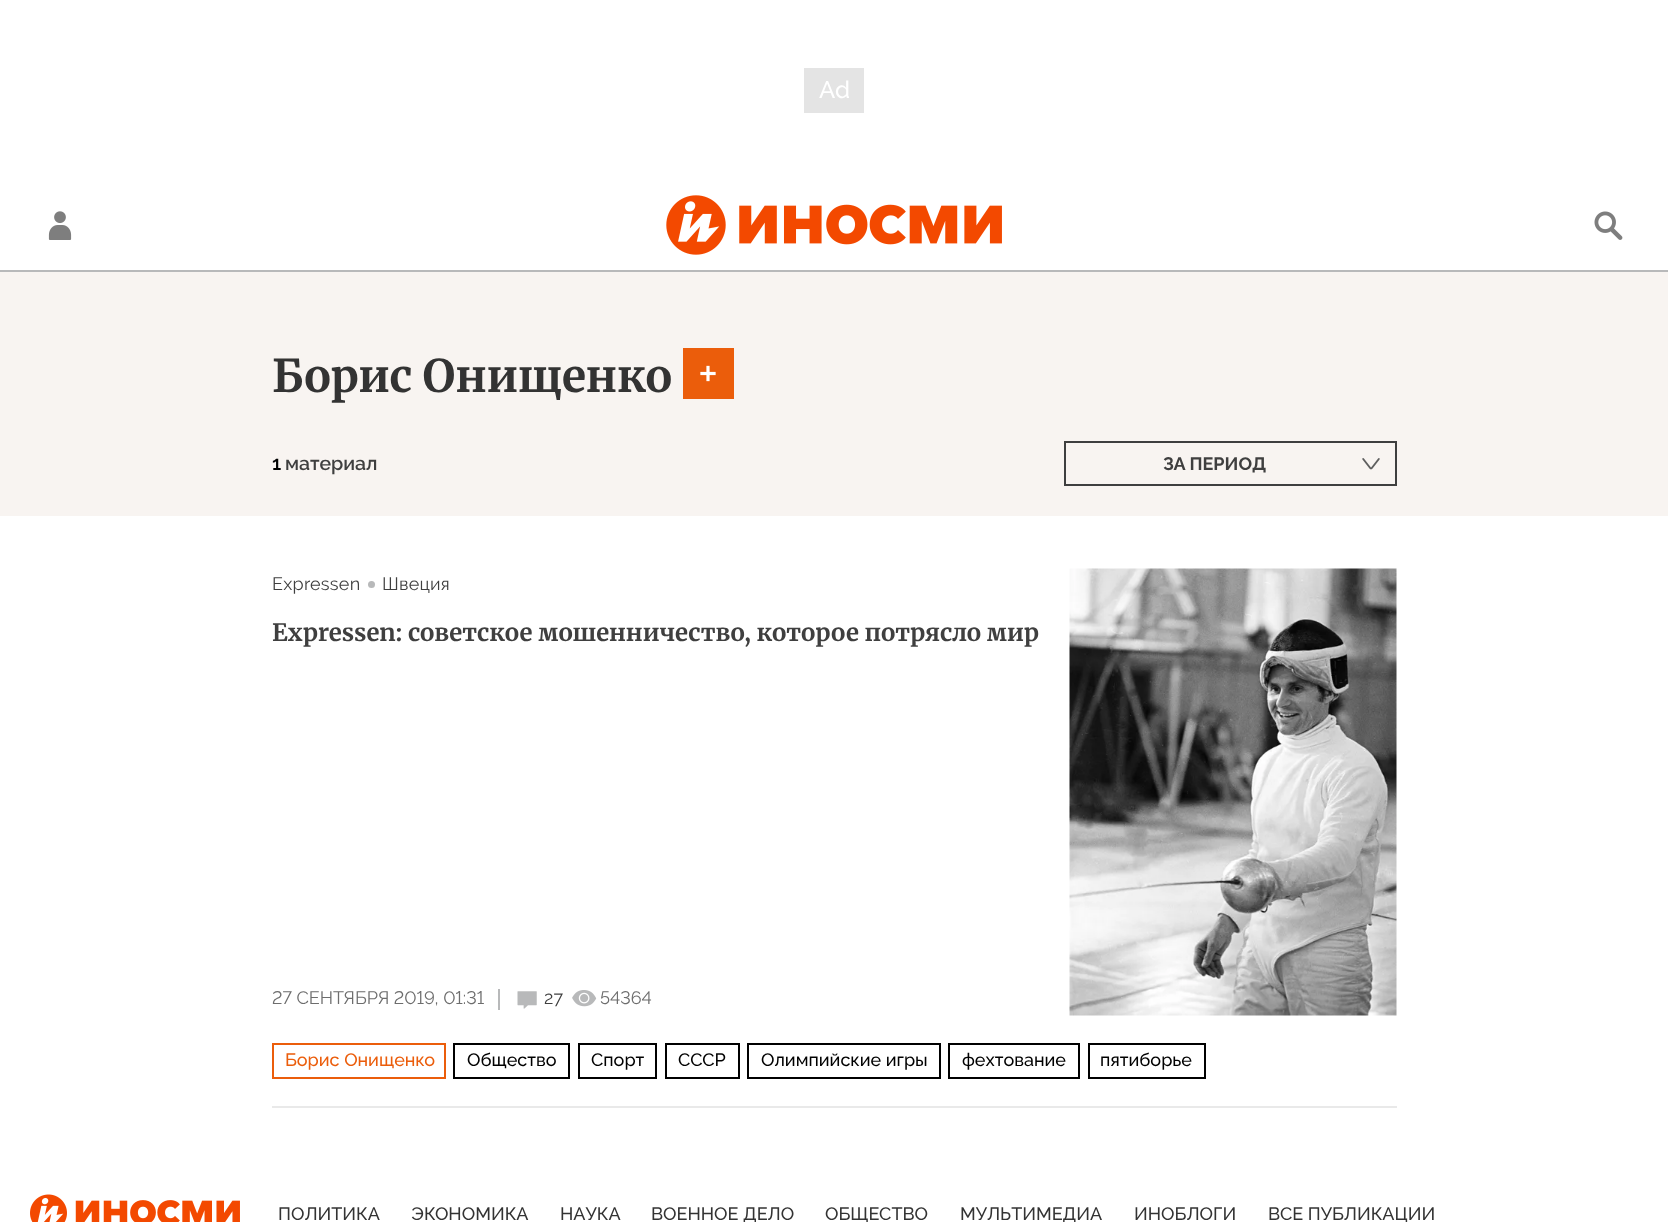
<svg xmlns="http://www.w3.org/2000/svg" width="1668" height="1222">
	<rect width="100%" height="100%" fill="#FFFFFF" />
	<rect x="804" y="68" width="60" height="45" fill="#E4E4E4" />
	<text x="819" y="98" font-family="Raleway" font-size="24" font-weight="500" fill="#FFFFFF">Ad</text>
	<rect x="0" y="270" width="1668" height="2" fill="#B8B9BA" />
	<image x="48" y="211" width="24" height="29" href="assets/img1.png" />
	<image x="666" y="195" width="336" height="60" href="assets/img2.png" />
	<image x="1594" y="211" width="29" height="29" href="assets/img3.png" />
	<rect x="0" y="272" width="1668" height="244" fill="#F8F4F1" />
	<text x="272" y="392" font-family="Merriweather" font-size="45" font-weight="700" fill="#333333">Борис Онищенко</text>
	<rect x="683" y="348" width="51" height="51" fill="#EB5D0B" />
	<image x="700" y="365" width="16" height="17" href="assets/img4.png" />
	<text x="272" y="470" font-family="Raleway" font-size="19.5" font-weight="600" fill="#000000">1</text>
	<text x="285" y="470" font-family="Raleway" font-size="19.5" font-weight="600" fill="#3F3F3F">материал</text>
	<image x="1362" y="458" width="18" height="12" href="assets/img5.png" />
	<rect x="1065" y="442" width="331" height="43" fill="none" stroke="#3F3F3F" stroke-width="2" />
	<text x="1163" y="470" font-family="Raleway" font-size="18" font-weight="700" fill="#3F3F3F">ЗА ПЕРИОД</text>
	<rect x="272" y="1106" width="1125" height="2" fill="#E9E9E9" />
	<text x="272" y="590" font-family="Raleway" font-size="18" letter-spacing="0.25" fill="#3F3F3F">Expressen</text>
	<circle cx="371.5" cy="584.5" r="3.5" fill="#B8B9BA" />
	<text x="382" y="590" font-family="Raleway" font-size="18" letter-spacing="0.25" fill="#3F3F3F">Швеция</text>
	<image x="1069" y="568" width="328" height="448" href="assets/img6.png" />
	<text x="272" y="641" font-family="'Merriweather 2'" font-size="24" font-weight="700" fill="#3F3F3F">Expressen: советское мошенничество, которое потрясло мир</text>
	<text x="272" y="1004" font-family="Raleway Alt" font-size="18" fill="#6D6D6D">27 СЕНТЯБРЯ 2019, 01:31</text>
	<rect x="498" y="989" width="2" height="21" fill="#B8B9BA" />
	<image x="517" y="991" width="20" height="18" href="assets/img7.png" />
	<text x="544" y="1004" font-family="Raleway" font-size="18" fill="#3F3F3F">27</text>
	<image x="572" y="990" width="25" height="17" href="assets/img8.png" />
	<text x="600" y="1004" font-family="Raleway Alt" font-size="18" fill="#6D6D6D">54364</text>
	<rect x="273" y="1044" width="172" height="34" fill="none" stroke="#EB5D0B" stroke-width="2" />
	<text x="285" y="1066" font-family="Raleway" font-size="18" font-weight="500" fill="#EB5D0B">Борис Онищенко</text>
	<rect x="454" y="1044" width="115" height="34" fill="none" stroke="#000000" stroke-width="2" />
	<text x="467" y="1066" font-family="Raleway" font-size="18" font-weight="500" fill="#000000">Общество</text>
	<rect x="579" y="1044" width="77" height="34" fill="none" stroke="#000000" stroke-width="2" />
	<text x="591" y="1066" font-family="Raleway" font-size="18" font-weight="500" fill="#000000">Спорт</text>
	<rect x="666" y="1044" width="73" height="34" fill="none" stroke="#000000" stroke-width="2" />
	<text x="678" y="1066" font-family="Raleway" font-size="18" font-weight="500" fill="#000000">СССР</text>
	<rect x="748" y="1044" width="192" height="34" fill="none" stroke="#000000" stroke-width="2" />
	<text x="761" y="1066" font-family="Raleway" font-size="18" font-weight="500" fill="#000000">Олимпийские игры</text>
	<rect x="949" y="1044" width="130" height="34" fill="none" stroke="#000000" stroke-width="2" />
	<text x="962" y="1066" font-family="Raleway" font-size="18" font-weight="500" fill="#000000">фехтование</text>
	<rect x="1089" y="1044" width="116" height="34" fill="none" stroke="#000000" stroke-width="2" />
	<text x="1100" y="1066" font-family="Raleway" font-size="18" font-weight="500" fill="#000000">пятиборье</text>
	<image x="30" y="1194" width="210" height="28" href="assets/img9.png" />
	<g font-family="Raleway" font-size="18" font-weight="500" fill="#333333">
		<text x="278" y="1220">ПОЛИТИКА</text>
		<text x="411" y="1220">ЭКОНОМИКА</text>
		<text x="560" y="1220">НАУКА</text>
		<text x="651" y="1220">ВОЕННОЕ ДЕЛО</text>
		<text x="825" y="1220">ОБЩЕСТВО</text>
		<text x="960" y="1220">МУЛЬТИМЕДИА</text>
		<text x="1134" y="1220">ИНОБЛОГИ</text>
		<text x="1268" y="1220">ВСЕ ПУБЛИКАЦИИ</text>
	</g>
</svg>
